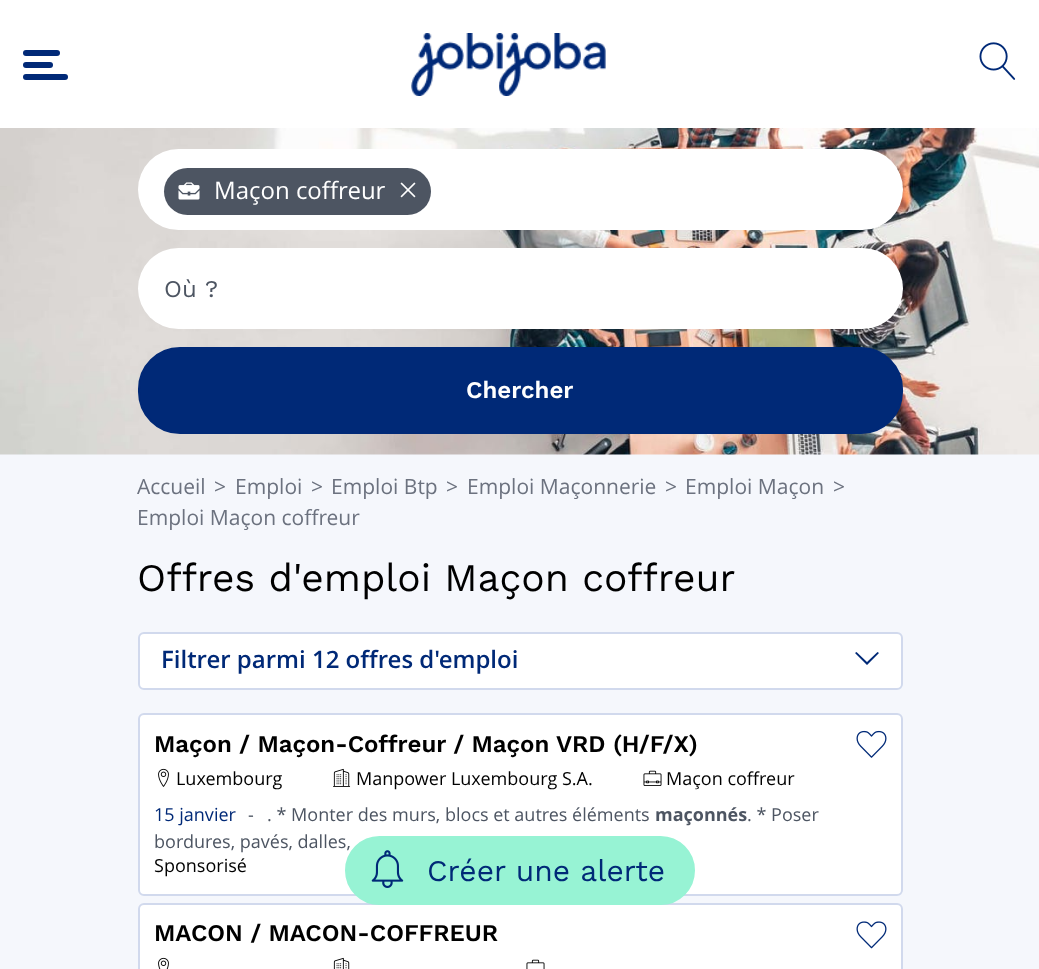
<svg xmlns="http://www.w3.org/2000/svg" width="1039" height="969">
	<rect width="100%" height="100%" fill="#F5F7FC" />
	<rect x="0" y="0" width="1039" height="128" fill="#FFFFFF" />
	<rect x="23" y="50" width="37" height="6" rx="3" fill="#002977" />
	<rect x="23" y="62" width="30" height="6" rx="3" fill="#002977" />
	<rect x="23" y="74" width="45" height="6" rx="3" fill="#002977" />
	<image x="411" y="33" width="195" height="63" href="assets/img1.png" />
	<image x="979" y="42" width="37" height="38" href="assets/img2.png" />
	<image x="0" y="128" width="1039" height="327" href="assets/img3.png" />
	<rect x="138" y="149" width="765" height="81" rx="40.5" fill="#FFFFFF" />
	<rect x="164" y="168" width="267" height="47" rx="23.5" fill="#4D5562" />
	<image x="178" y="182" width="22" height="18" href="assets/img4.png" />
	<text x="214" y="199" font-family="Open Sans" font-size="24" fill="#FFFFFF">Maçon coffreur</text>
	<image x="400" y="182" width="16" height="16" href="assets/img5.png" />
	<rect x="138" y="248" width="765" height="81" rx="40.5" fill="#FFFFFF" />
	<text x="164" y="297" font-family="Work Sans" font-size="24" fill="#4D5562">Où ?</text>
	<rect x="139" y="348" width="763" height="85" rx="41" fill="#002977" stroke="#002977" stroke-width="2" />
	<text x="466" y="398" font-family="Work Sans" font-size="24" font-weight="600" fill="#FFFFFF">Chercher</text>
	<g font-family="Open Sans" font-size="21" fill="#6C727F">
		<text x="137" y="494">Accueil</text>
		<text x="214" y="494">&gt;</text>
		<text x="235" y="494">Emploi</text>
		<text x="311" y="494">&gt;</text>
		<text x="331" y="494">Emploi Btp</text>
		<text x="446" y="494">&gt;</text>
		<text x="467" y="494">Emploi Maçonnerie</text>
		<text x="665" y="494">&gt;</text>
		<text x="685" y="494">Emploi Maçon</text>
		<text x="833" y="494">&gt;</text>
		<text x="137" y="525">Emploi Maçon coffreur</text>
	</g>
	<text x="137" y="591" font-family="Work Sans" font-size="39" fill="#000000">Offres d'emploi Maçon coffreur</text>
	<rect x="139" y="633" width="763" height="56" rx="5" fill="#FFFFFF" stroke="#D1D9ED" stroke-width="2" />
	<text x="161" y="668" font-family="Open Sans" font-size="24" font-weight="600" fill="#002977">Filtrer parmi 12 offres d'emploi</text>
	<path d="M879 653L877.5 652L867 662L856.5 652L855 653L867 665Z" fill="#002977" />
	<rect x="139" y="714" width="763" height="181" rx="5" fill="#FFFFFF" stroke="#D1D9ED" stroke-width="2" />
	<text x="154" y="752" font-family="Work Sans" font-size="24" font-weight="600" fill="#000000">Maçon / Maçon-Coffreur / Maçon VRD (H/F/X)</text>
	<image x="158" y="768" width="11" height="19" href="assets/img6.png" />
	<text x="176" y="785" font-family="Open Sans" font-size="18" fill="#000000">Luxembourg</text>
	<image x="333" y="768" width="18" height="19" href="assets/img7.png" />
	<text x="356" y="785" font-family="Open Sans" font-size="18" fill="#000000">Manpower Luxembourg S.A.</text>
	<image x="643" y="770" width="19" height="16" href="assets/img8.png" />
	<text x="666" y="785" font-family="Open Sans" font-size="18" fill="#000000">Maçon coffreur</text>
	<text x="154" y="821" font-family="Open Sans" font-size="18" fill="#002977">15 janvier</text>
	<g font-family="Open Sans" font-size="18" fill="#4D5562">
		<text x="248" y="821">-</text>
		<text x="267" y="821">. * Monter des murs, blocs et autres éléments</text>
	</g>
	<text x="655" y="821" font-family="Open Sans" font-size="18" font-weight="700" fill="#4D5562">maçonnés</text>
	<g font-family="Open Sans" font-size="18" fill="#4D5562">
		<text x="747" y="821">. * Poser</text>
		<text x="154" y="848">bordures, pavés, dalles,</text>
	</g>
	<text x="154" y="872" font-family="Open Sans" font-size="18" fill="#000000">Sponsorisé</text>
	<image x="856" y="730" width="31" height="28" href="assets/img9.png" />
	<rect x="139" y="904" width="763" height="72" rx="5" fill="#FFFFFF" stroke="#D1D9ED" stroke-width="2" />
	<text x="154" y="941" font-family="Work Sans" font-size="24" font-weight="600" fill="#000000">MACON / MACON-COFFREUR</text>
	<image x="158" y="957" width="11" height="12" href="assets/img10.png" />
	<image x="333" y="957" width="17" height="12" href="assets/img11.png" />
	<image x="526" y="959" width="19" height="10" href="assets/img12.png" />
	<image x="856" y="921" width="31" height="28" href="assets/img13.png" />
	<rect x="346" y="837" width="348" height="67" rx="33.5" fill="#97F3D4" stroke="#97F3D4" stroke-width="2" />
	<image x="371" y="850" width="33" height="38" href="assets/img14.png" />
	<text x="427" y="881" font-family="Work Sans" font-size="30" fill="#002977">Créer une alerte</text>
</svg>
